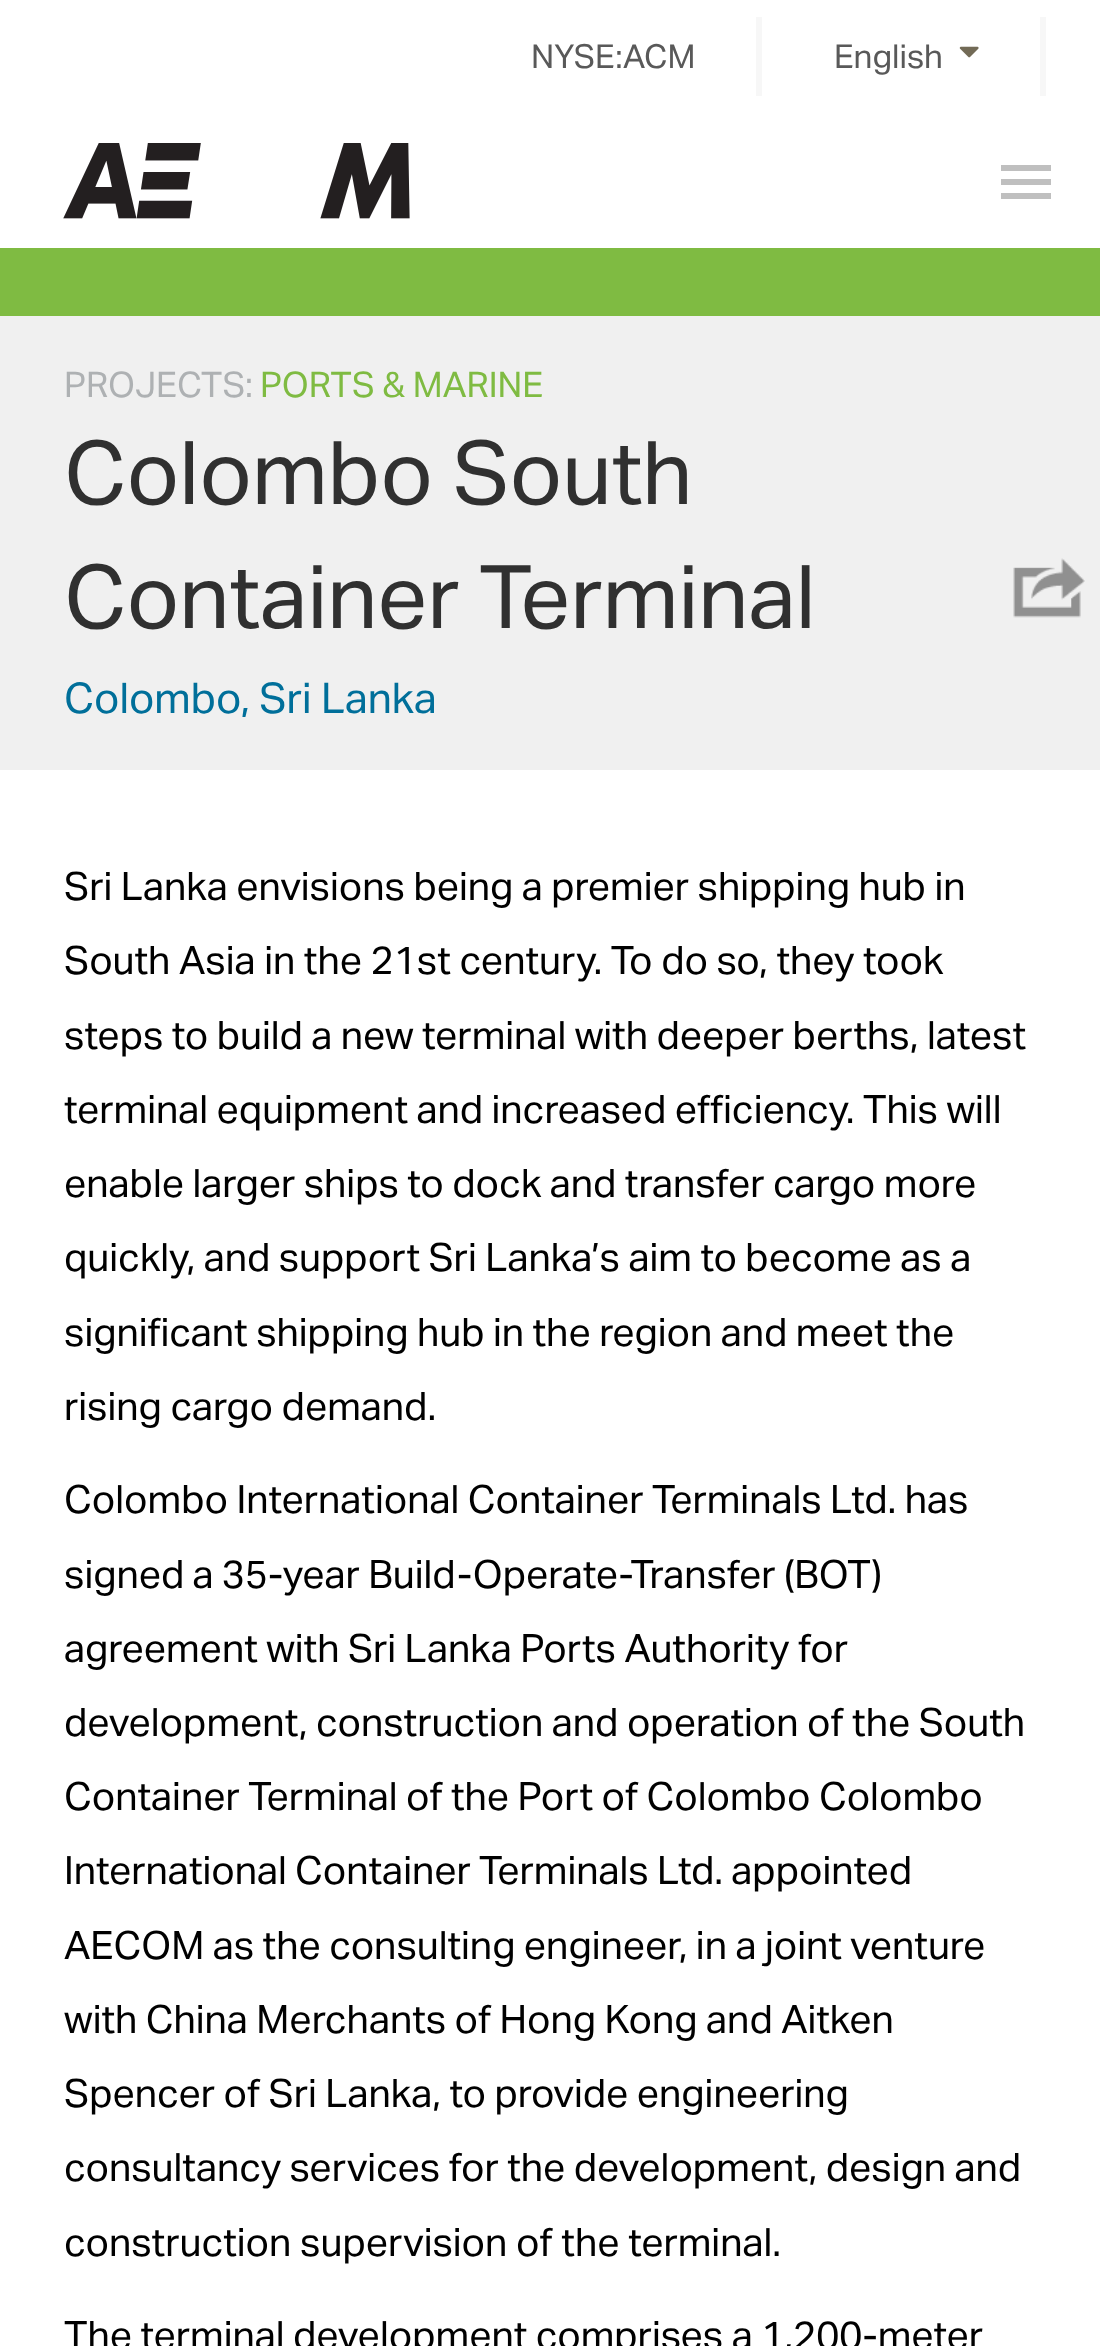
<svg xmlns="http://www.w3.org/2000/svg" width="1100" height="2346">
	<rect width="100%" height="100%" fill="#FFFFFF" />
	<rect x="756" y="17" width="6" height="79" fill="#F7F7F7" />
	<text x="531" y="68" font-family="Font" font-size="33" fill="#595959">NYSE:ACM</text>
	<rect x="1040" y="17" width="6" height="79" fill="#F7F7F7" />
	<text x="834" y="68" font-family="Font" font-size="33" fill="#595959">English</text>
	<image x="959" y="46" width="20" height="12" href="assets/img1.png" />
	<image x="63" y="143" width="347" height="76" href="assets/img2.png" />
	<rect x="1001" y="165" width="50" height="6" fill="#BFBFBF" />
	<rect x="1001" y="179" width="50" height="6" fill="#BFBFBF" />
	<rect x="1001" y="193" width="50" height="6" fill="#BFBFBF" />
	<rect x="0" y="316" width="1100" height="454" fill="#F0F0F0" />
	<rect x="0" y="248" width="1100" height="68" fill="#7FBB42" />
	<text x="64" y="397" font-family="Font" font-size="35.25" fill="#AEB1B3">PROJECTS:</text>
	<text x="260" y="397" font-family="Font" font-size="35.25" fill="#7FBB42">PORTS &amp; MARINE</text>
	<g font-family="Font" font-size="88" fill="#303030">
		<text x="64" y="504">Colombo South</text>
		<text x="64" y="628">Container Terminal</text>
	</g>
	<image x="1013" y="558" width="72" height="60" href="assets/img3.png" />
	<text x="64" y="713" font-family="Font" font-size="42.25" fill="#006F9A">Colombo, Sri Lanka</text>
	<g font-family="Font" font-size="39.1" fill="#000000">
		<text x="64" y="900" word-spacing="-0.25">Sri Lanka envisions being a premier shipping hub in</text>
		<text x="64" y="974" word-spacing="-0.1">South Asia in the 21st century. To do so, they took</text>
		<text x="64" y="1049" word-spacing="-0.25">steps to build a new terminal with deeper berths, latest</text>
		<text x="64" y="1123" word-spacing="-0.25">terminal equipment and increased efficiency. This will</text>
		<text x="64" y="1197" word-spacing="-0.25">enable larger ships to dock and transfer cargo more</text>
		<text x="64" y="1271" word-spacing="-0.25">quickly, and support Sri Lanka’s aim to become as a</text>
		<text x="64" y="1346" word-spacing="-0.25">significant shipping hub in the region and meet the</text>
		<text x="64" y="1420">rising cargo demand.</text>
		<text x="64" y="1513" word-spacing="-0.25">Colombo International Container Terminals Ltd. has</text>
		<text x="64" y="1588" word-spacing="-0.5">signed a 35-year Build-Operate-Transfer (BOT)</text>
		<text x="64" y="1662" word-spacing="-0.25">agreement with Sri Lanka Ports Authority for</text>
		<text x="64" y="1736" word-spacing="-0.25">development, construction and operation of the South</text>
		<text x="64" y="1810" word-spacing="-0.25">Container Terminal of the Port of Colombo Colombo</text>
		<text x="64" y="1884" word-spacing="-0.5">International Container Terminals Ltd. appointed</text>
		<text x="64" y="1959" word-spacing="-0.25">AECOM as the consulting engineer, in a joint venture</text>
		<text x="64" y="2033" word-spacing="-0.25">with China Merchants of Hong Kong and Aitken</text>
		<text x="64" y="2107" word-spacing="-0.25">Spencer of Sri Lanka, to provide engineering</text>
		<text x="64" y="2181" word-spacing="-0.25">consultancy services for the development, design and</text>
		<text x="64" y="2256">construction supervision of the terminal.</text>
		<text x="64" y="2349" word-spacing="-0.25">The terminal development comprises a 1,200-meter</text>
	</g>
</svg>
